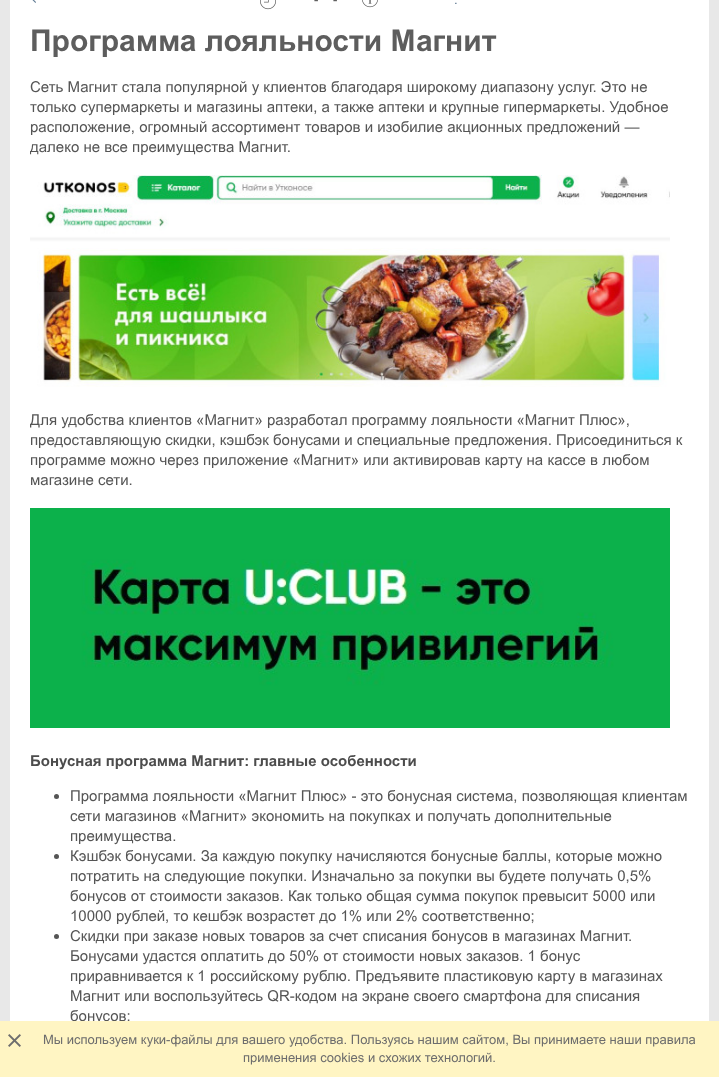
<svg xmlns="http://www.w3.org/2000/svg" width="719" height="1077">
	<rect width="100%" height="100%" fill="#E8E8E8" />
	<rect x="10" y="0" width="699" height="1021" fill="#FFFFFF" />
	<image x="32" y="0" width="4" height="3" href="assets/img1.png" />
	<image x="260" y="0" width="16" height="10" href="assets/img2.png" />
	<g font-family="Arial" font-size="13" fill="#555555">
		<text x="314" y="4">-</text>
		<text x="333" y="4">-</text>
	</g>
	<image x="362" y="0" width="16" height="8" href="assets/img3.png" />
	<text x="454" y="4" font-family="Arial" font-size="13" fill="#5D7891">.</text>
	<text x="30" y="51" font-family="Arial" font-size="30" font-weight="700" fill="#5D5D5D">Программа лояльности Магнит</text>
	<g font-family="Arial" font-size="15" fill="#555555">
		<text x="30" y="92">Сеть Магнит стала популярной у клиентов благодаря широкому диапазону услуг. Это не</text>
		<text x="30" y="112">только супермаркеты и магазины аптеки, а также аптеки и крупные гипермаркеты. Удобное</text>
		<text x="30" y="132">расположение, огромный ассортимент товаров и изобилие акционных предложений —</text>
		<text x="30" y="152">далеко не все преимущества Магнит.</text>
	</g>
	<image x="30" y="175" width="640" height="212" href="assets/img4.png" />
	<g font-family="Arial" font-size="15" fill="#555555">
		<text x="30" y="425">Для удобства клиентов «Магнит» разработал программу лояльности «Магнит Плюс»,</text>
		<text x="30" y="445">предоставляющую скидки, кэшбэк бонусами и специальные предложения. Присоединиться к</text>
		<text x="30" y="465">программе можно через приложение «Магнит» или активировав карту на кассе в любом</text>
		<text x="30" y="485">магазине сети.</text>
	</g>
	<image x="30" y="508" width="640" height="220" href="assets/img5.png" />
	<text x="30" y="766" font-family="Arial" font-size="15" font-weight="700" fill="#4C4C4C">Бонусная программа Магнит: главные особенности</text>
	<circle cx="56.5" cy="796.5" r="2.5" fill="#555555" />
	<g font-family="Arial" font-size="15" fill="#555555">
		<text x="70" y="801">Программа лояльности «Магнит Плюс» - это бонусная система, позволяющая клиентам</text>
		<text x="70" y="821">сети магазинов «Магнит» экономить на покупках и получать дополнительные</text>
		<text x="70" y="841">преимущества.</text>
	</g>
	<circle cx="56.5" cy="856.5" r="2.5" fill="#555555" />
	<g font-family="Arial" font-size="15" fill="#555555">
		<text x="70" y="861">Кэшбэк бонусами. За каждую покупку начисляются бонусные баллы, которые можно</text>
		<text x="70" y="881">потратить на следующие покупки. Изначально за покупки вы будете получать 0,5%</text>
		<text x="70" y="901">бонусов от стоимости заказов. Как только общая сумма покупок превысит 5000 или</text>
		<text x="70" y="921">10000 рублей, то кешбэк возрастет до 1% или 2% соответственно;</text>
	</g>
	<circle cx="56.5" cy="936.5" r="2.5" fill="#555555" />
	<g font-family="Arial" font-size="15" fill="#555555">
		<text x="70" y="941">Скидки при заказе новых товаров за счет списания бонусов в магазинах Магнит.</text>
		<text x="70" y="961">Бонусами удастся оплатить до 50% от стоимости новых заказов. 1 бонус</text>
		<text x="70" y="981">приравнивается к 1 российскому рублю. Предъявите пластиковую карту в магазинах</text>
		<text x="70" y="1001">Магнит или воспользуйтесь QR-кодом на экране своего смартфона для списания</text>
		<text x="70" y="1021">бонусов;</text>
	</g>
	<rect x="0" y="1021" width="719" height="56" fill="#FFF5C3" />
	<image x="8" y="1034" width="13" height="13" href="assets/img6.png" />
	<g font-family="Arial" font-size="13" fill="#6D6D6D">
		<text x="43" y="1044">Мы используем куки-файлы для вашего удобства. Пользуясь нашим сайтом, Вы принимаете наши правила</text>
		<text x="243" y="1062">применения cookies и схожих технологий.</text>
	</g>
</svg>
